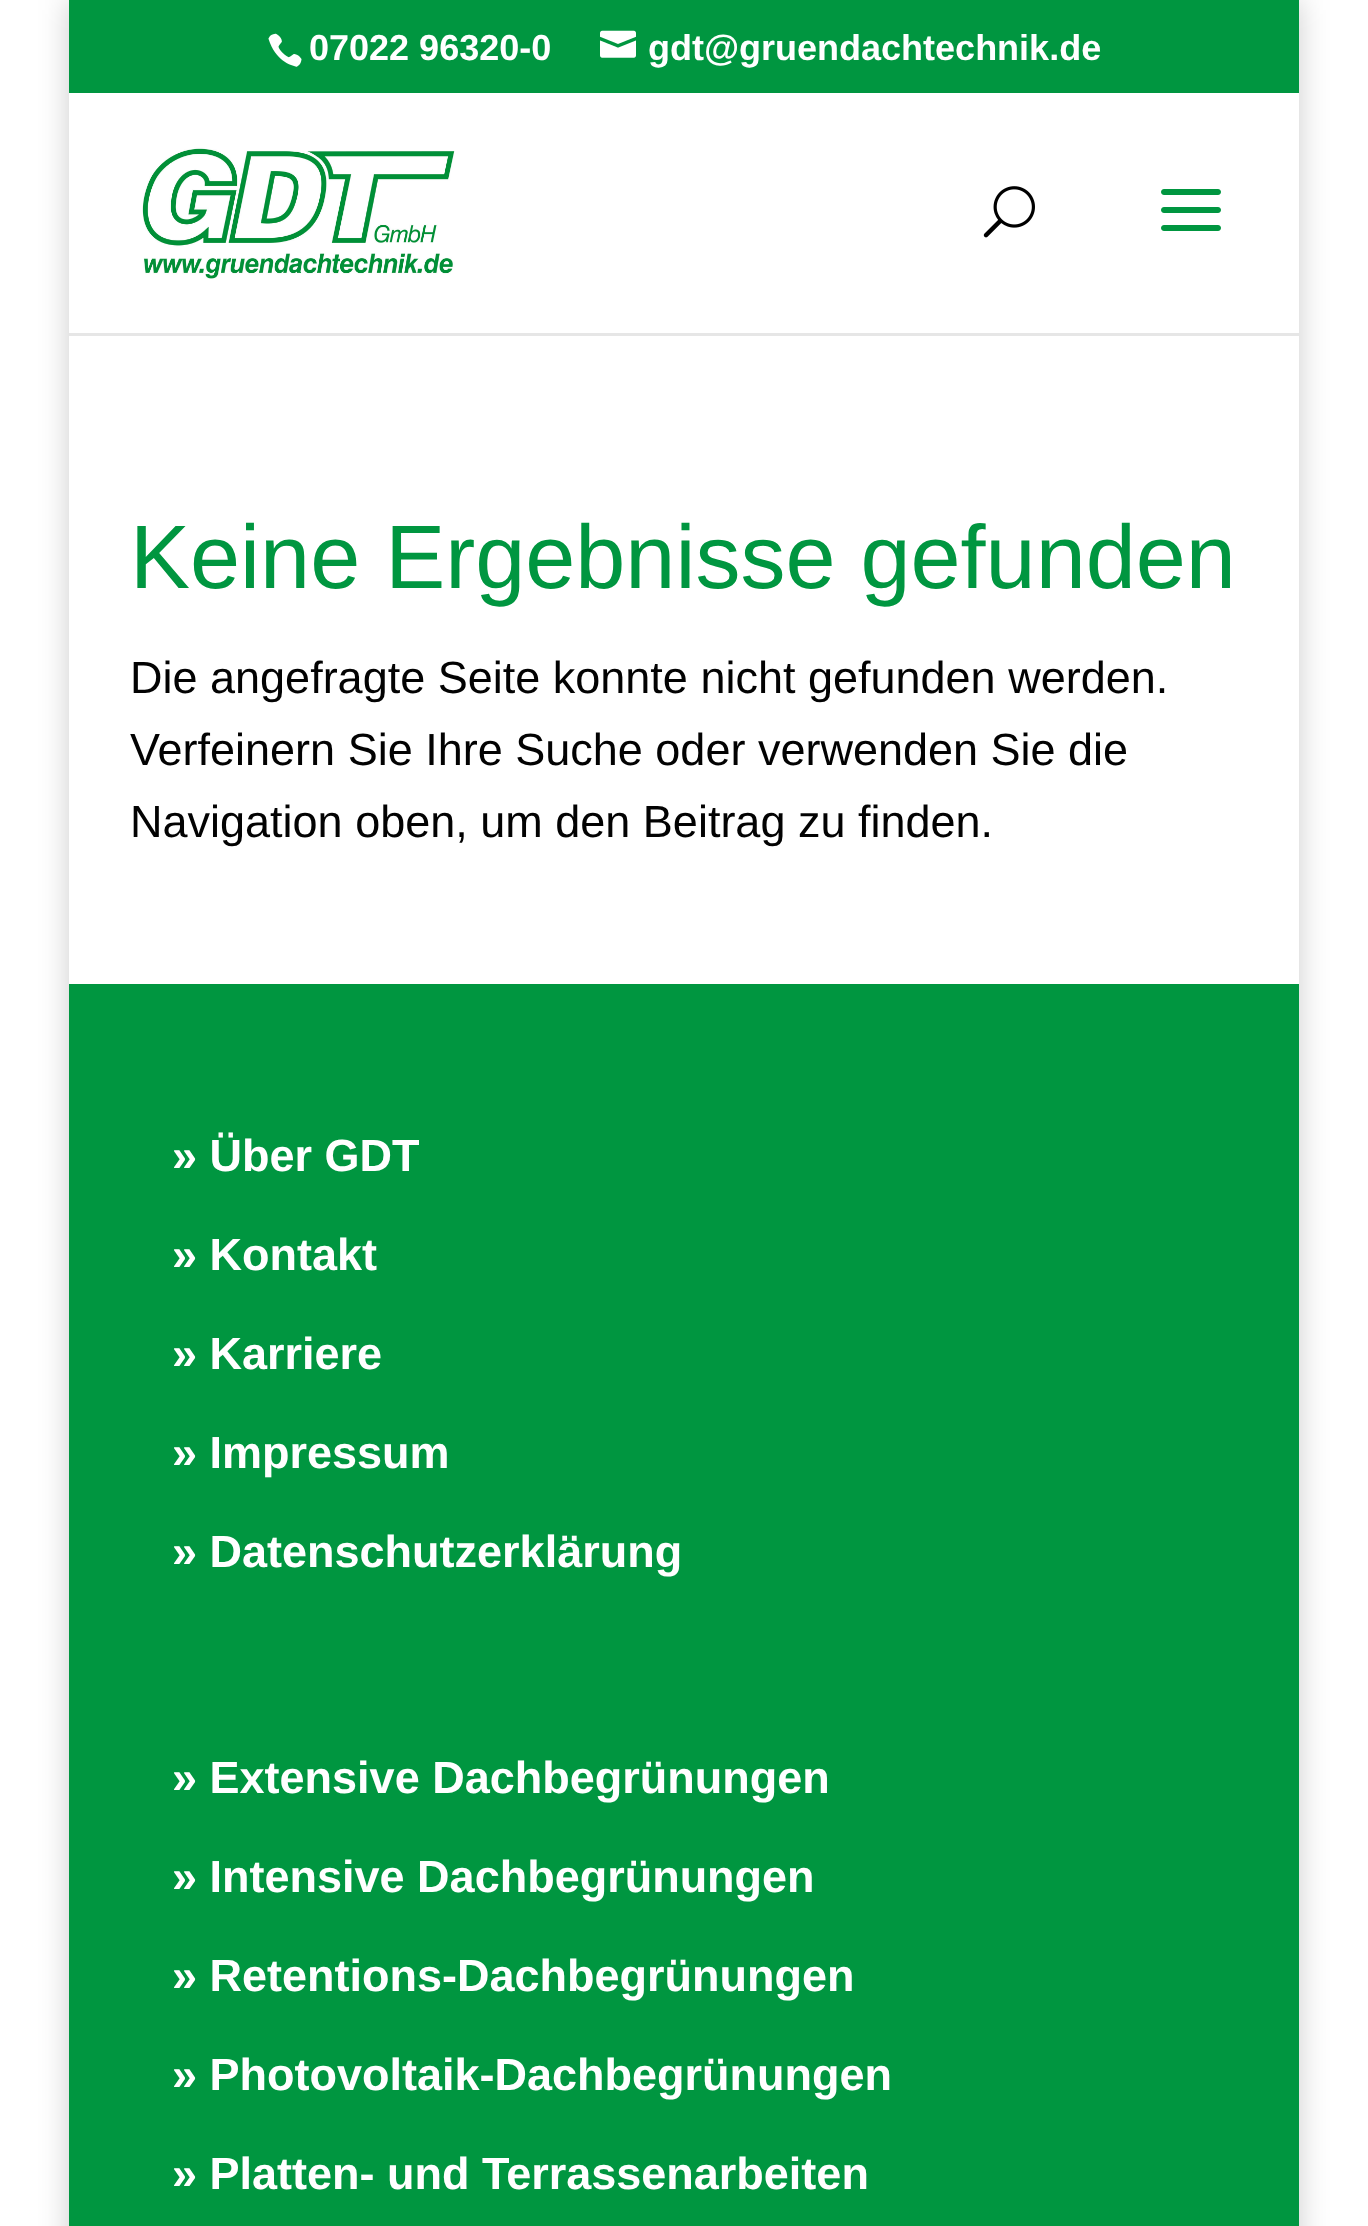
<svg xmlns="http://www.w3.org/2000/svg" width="1368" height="2226">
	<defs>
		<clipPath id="clip1"><path d="M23 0H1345V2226H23ZM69 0H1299V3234H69Z" clip-rule="evenodd" /></clipPath>
	</defs>
	<rect width="100%" height="100%" fill="#FFFFFF" />
	<g clip-path="url(#clip1)">
		<rect x="69" y="0" width="1230" height="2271" fill="#000000" fill-opacity="0.2" filter="blur(15px)" />
	</g>
	<rect x="69" y="0" width="1230" height="93" fill="#009640" />
	<image x="268" y="33" width="34" height="34" href="assets/img1.png" />
	<text x="309" y="60" font-family="Liberation Sans" font-size="36" font-weight="700" fill="#FFFFFF">07022 96320-0</text>
	<image x="600" y="30" width="36" height="28" href="assets/img2.png" />
	<text x="648" y="60" font-family="Liberation Sans" font-size="36" font-weight="700" fill="#FFFFFF">gdt@gruendachtechnik.de</text>
	<rect x="69" y="333" width="1230" height="3" fill="#E6E6E6" />
	<image x="142" y="147" width="313" height="132" href="assets/img3.png" />
	<image x="983" y="186" width="52" height="52" href="assets/img4.png" />
	<image x="1161" y="189" width="60" height="42" href="assets/img5.png" />
	<text x="130" y="588" font-family="Liberation Sans" font-size="90" fill="#009640">Keine Ergebnisse gefunden</text>
	<g font-family="Liberation Sans" font-size="45" fill="#020202">
		<text x="130" y="693">Die angefragte Seite konnte nicht gefunden werden.</text>
		<text x="130" y="765">Verfeinern Sie Ihre Suche oder verwenden Sie die</text>
		<text x="130" y="837">Navigation oben, um den Beitrag zu finden.</text>
	</g>
	<rect x="69" y="984" width="1230" height="1242" fill="#009640" />
	<g font-family="Liberation Sans" font-size="45" font-weight="700" fill="#FFFFFF">
		<text x="172" y="1171">» Über GDT</text>
		<text x="172" y="1270">» Kontakt</text>
		<text x="172" y="1369">» Karriere</text>
		<text x="172" y="1468">» Impressum</text>
		<text x="172" y="1567">» Datenschutzerklärung</text>
		<text x="172" y="1793">» Extensive Dachbegrünungen</text>
		<text x="172" y="1892">» Intensive Dachbegrünungen</text>
		<text x="172" y="1991">» Retentions-Dachbegrünungen</text>
		<text x="172" y="2090">» Photovoltaik-Dachbegrünungen</text>
		<text x="172" y="2189">» Platten- und Terrassenarbeiten</text>
	</g>
</svg>
